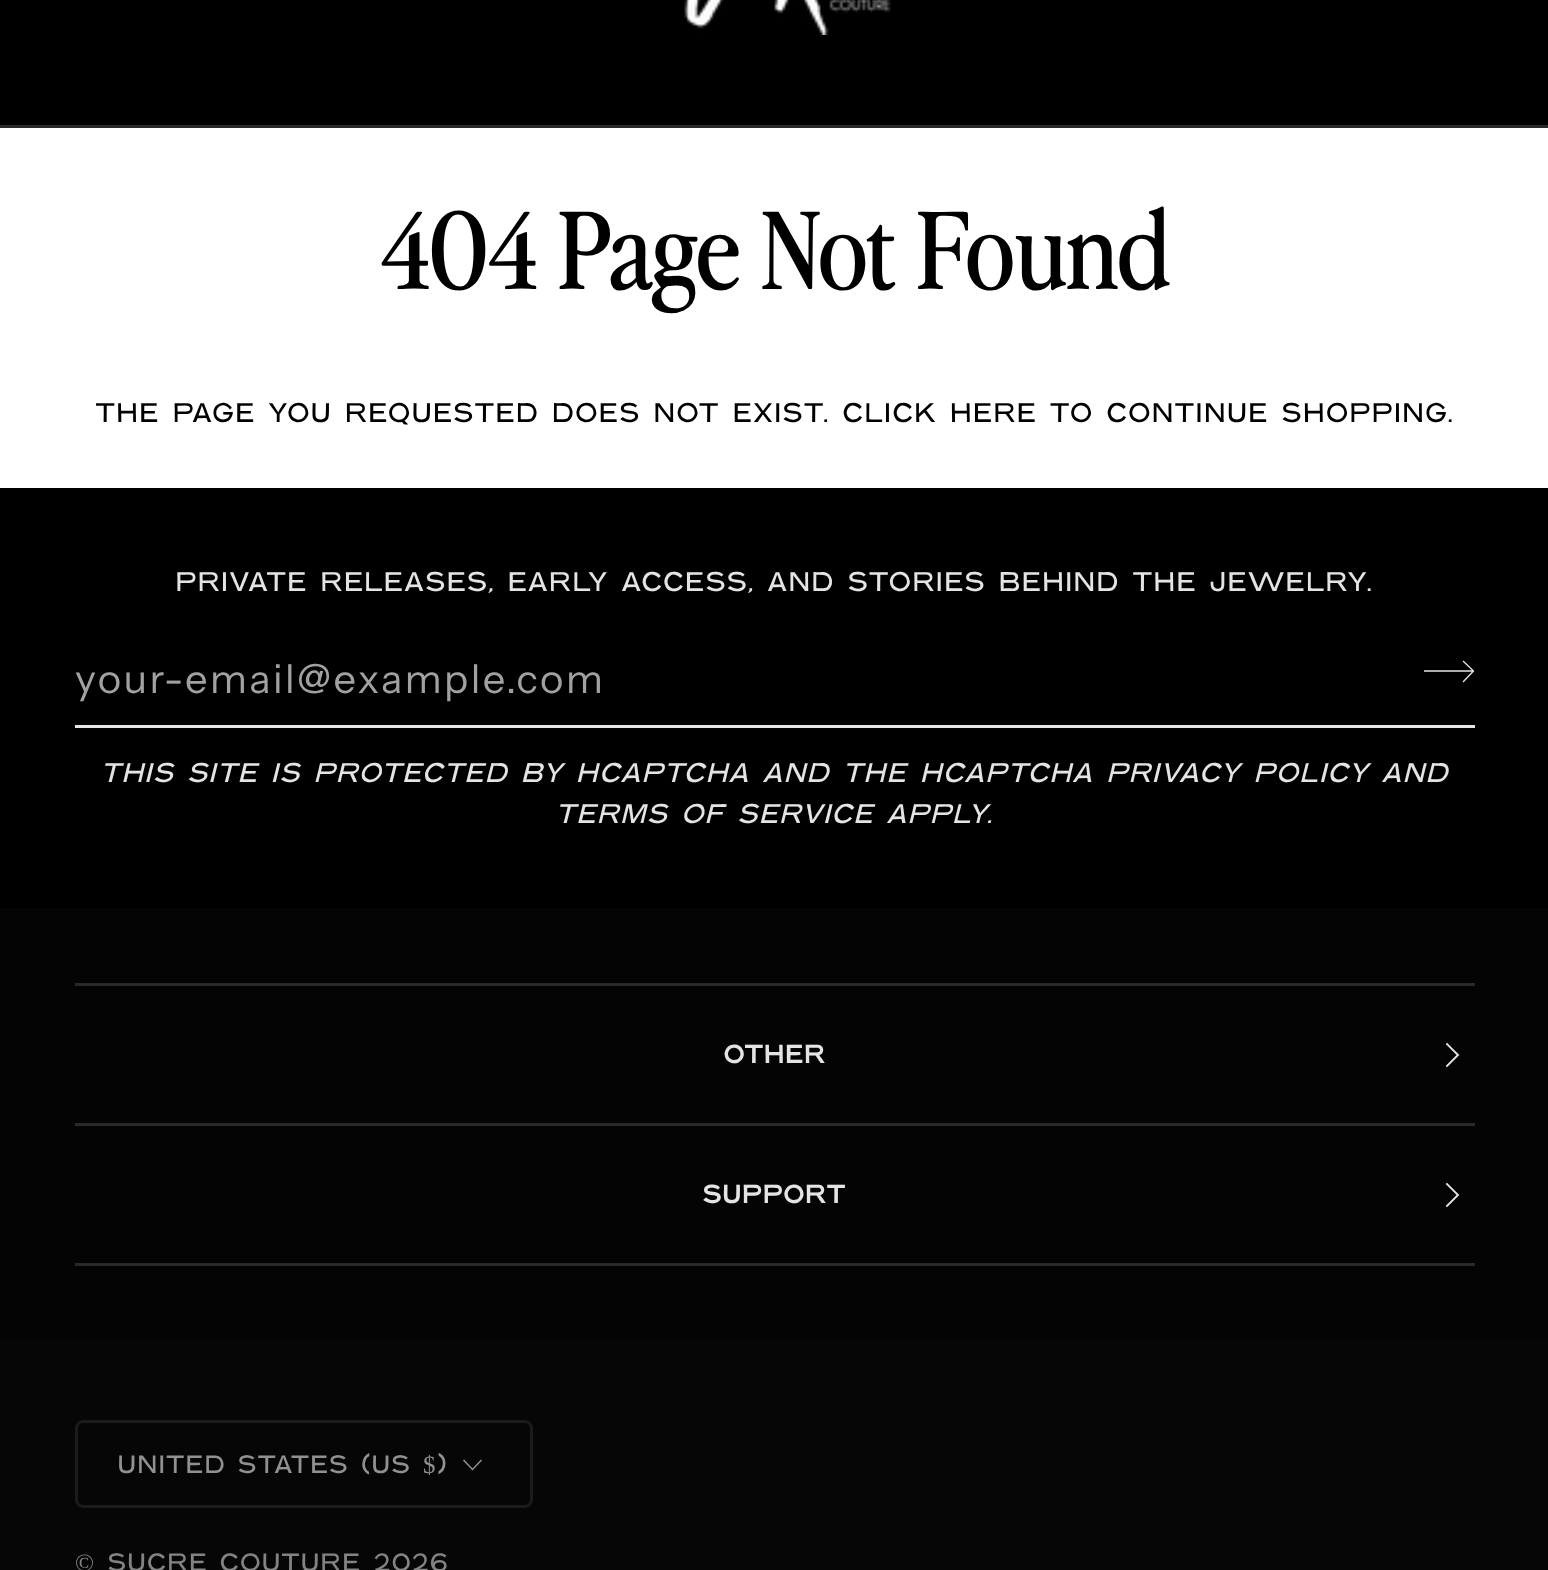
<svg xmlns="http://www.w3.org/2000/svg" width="1548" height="1570">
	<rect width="100%" height="100%" fill="#FFFFFF" />
	<rect x="0" y="0" width="1548" height="125" fill="#000000" />
	<rect x="0" y="125" width="1548" height="3" fill="#282828" />
	<image x="684" y="0" width="207" height="35" href="assets/img1.png" />
	<text x="380" y="289" font-family="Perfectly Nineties" font-size="106.25" fill="#000000">404 Page Not Found</text>
	<text x="96" y="422" font-family="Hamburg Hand" font-size="27" font-weight="300" letter-spacing="2.43" fill="#000000">THE PAGE YOU REQUESTED DOES NOT EXIST. CLICK HERE TO CONTINUE SHOPPING.</text>
	<rect x="0" y="908" width="1548" height="432" fill="#040404" />
	<rect x="0" y="488" width="1548" height="420" fill="#000000" />
	<text x="176" y="591" font-family="Hamburg Hand" font-size="27" font-weight="300" letter-spacing="2.43" fill="#E4E4E4">PRIVATE RELEASES, EARLY ACCESS, AND STORIES BEHIND THE JEWELRY.</text>
	<rect x="75" y="725" width="1400" height="3" fill="#E6E6E6" />
	<text x="75" y="693" font-family="Instrument Sans" font-size="40" letter-spacing="2.43" fill="#A1A1A1">your-email@example.com</text>
	<path d="M1463 661L1473.5 671L1463 682M1424 671H1473.5" fill="none" stroke="#E6E6E6" stroke-width="1.3" />
	<g font-family="Hamburg Hand" font-size="27" font-weight="300" font-style="italic" letter-spacing="2.43" fill="#E4E4E4">
		<text x="101" y="782">THIS SITE IS PROTECTED BY HCAPTCHA AND THE HCAPTCHA PRIVACY POLICY</text>
		<text x="1382" y="782">AND</text>
		<text x="556" y="823">TERMS OF SERVICE</text>
		<text x="887" y="823">APPLY.</text>
	</g>
	<rect x="75" y="983" width="1400" height="3" fill="#292929" />
	<rect x="75" y="1123" width="1400" height="3" fill="#292929" />
	<text x="724" y="1063" font-family="Hamburg Hand" font-size="25" font-weight="700" letter-spacing="2.25" fill="#E4E4E4">OTHER</text>
	<path d="M1447 1066L1458 1055L1447 1044" fill="none" stroke="#E4E4E4" stroke-width="1.9" stroke-linecap="square" />
	<rect x="75" y="1263" width="1400" height="3" fill="#292929" />
	<text x="703" y="1203" font-family="Hamburg Hand" font-size="25" font-weight="700" letter-spacing="2.25" fill="#E4E4E4">SUPPORT</text>
	<path d="M1447 1206L1458 1195L1447 1184" fill="none" stroke="#E4E4E4" stroke-width="1.9" stroke-linecap="square" />
	<rect x="0" y="1340" width="1548" height="230" fill="#060606" />
	<rect x="76.5" y="1421.5" width="455" height="85" rx="6.5" fill="none" stroke="#1B1B1B" stroke-width="3" />
	<text x="118" y="1473" font-family="Hamburg Hand" font-size="25" font-weight="300" letter-spacing="2.25" fill="#919191">UNITED STATES (US</text>
	<text x="423" y="1473" font-family="Liberation Serif" font-size="25" letter-spacing="2.25" fill="#919191">$</text>
	<text x="438" y="1473" font-family="Hamburg Hand" font-size="25" font-weight="300" letter-spacing="2.25" fill="#919191">)</text>
	<path d="M464 1460.5L472.5 1469.5L481 1460.5" fill="none" stroke="#919191" stroke-width="1.5" stroke-linecap="square" />
	<text x="75" y="1571" font-family="Liberation Serif" font-size="25" letter-spacing="2.25" fill="#838383">©</text>
	<g font-family="Hamburg Hand" font-size="25" font-weight="300" letter-spacing="2.25" fill="#838383">
		<text x="108" y="1571">SUCRÉ COUTURE</text>
		<text x="374" y="1571">2026</text>
	</g>
</svg>
